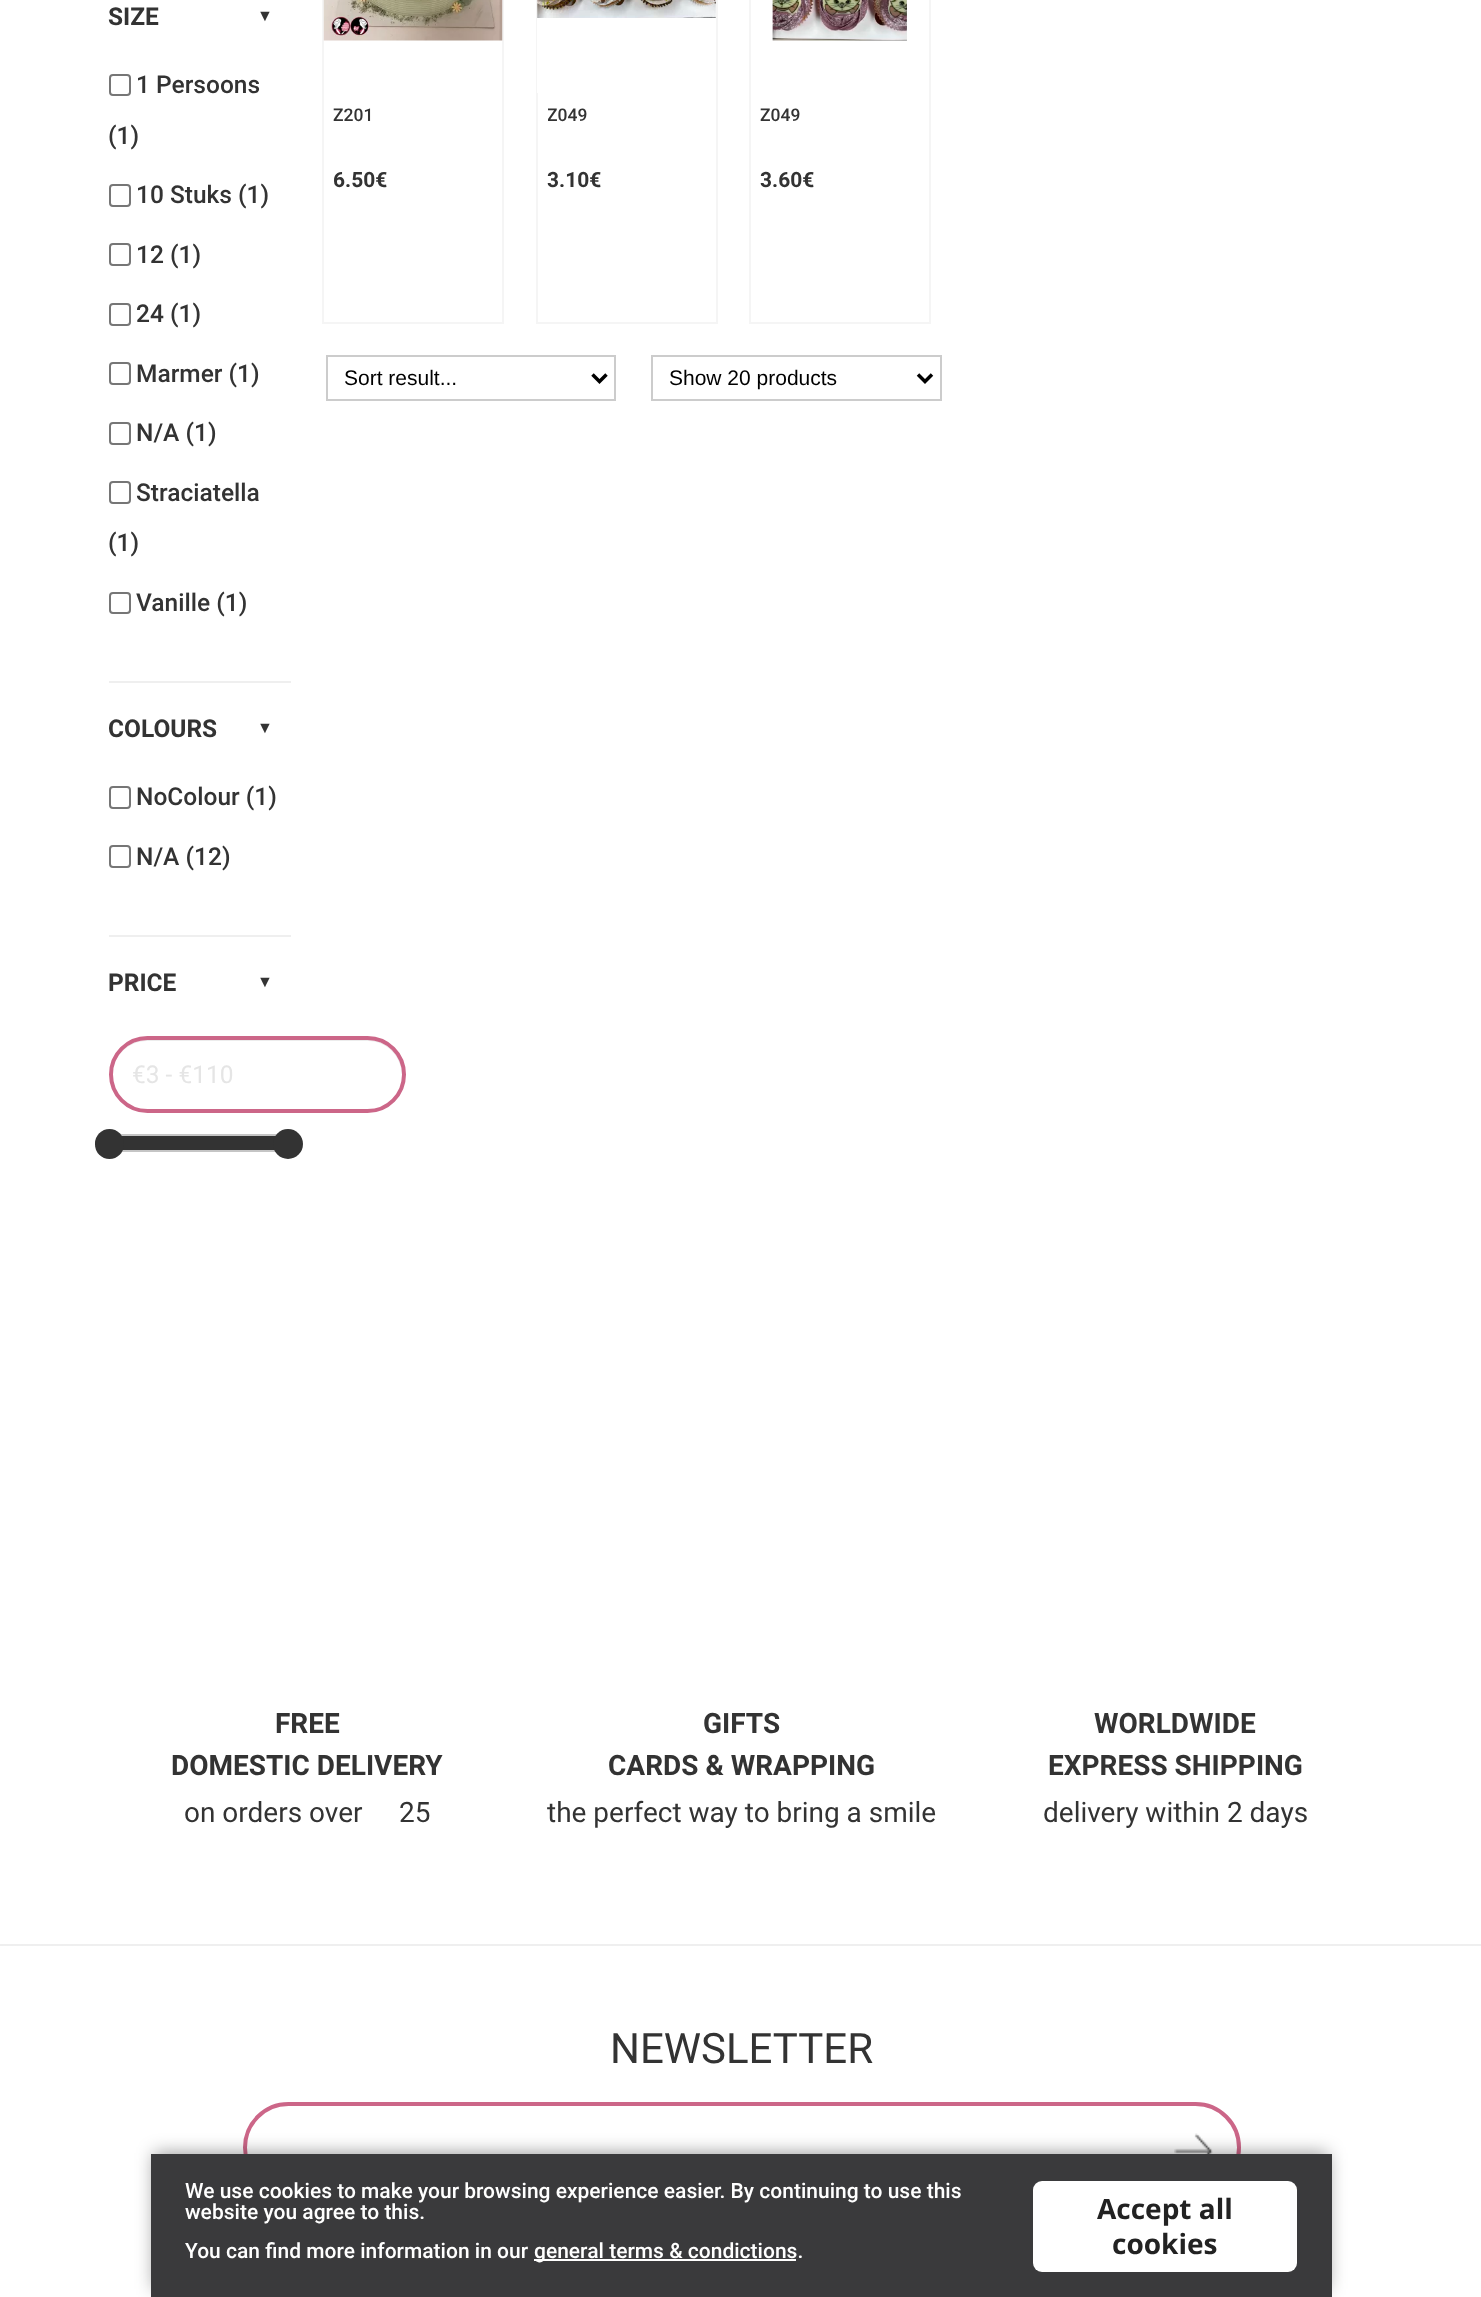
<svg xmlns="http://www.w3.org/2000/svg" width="1481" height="2297">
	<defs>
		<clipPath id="clip1"><rect x="548" y="103" width="157" height="49" /></clipPath>
	</defs>
	<rect width="100%" height="100%" fill="#FFFFFF" />
	<text x="108" y="25" font-family="Roboto" font-size="24.5" font-weight="700" fill="#333333">SIZE</text>
	<text x="257" y="21" font-family="Liberation Sans" font-size="16" font-weight="700" fill="#333333">▼</text>
	<rect x="110" y="75" width="20" height="20" rx="3" fill="none" stroke="#767676" stroke-width="2" />
	<g font-family="Roboto" font-size="24.5" font-weight="500" fill="#333333">
		<text x="136" y="93">1 Persoons</text>
		<text x="108" y="144">(1)</text>
	</g>
	<rect x="110" y="185" width="20" height="21" rx="3" fill="none" stroke="#767676" stroke-width="2" />
	<text x="136" y="203" font-family="Roboto" font-size="24.5" font-weight="500" fill="#333333">10 Stuks (1)</text>
	<rect x="110" y="244" width="20" height="21" rx="3" fill="none" stroke="#767676" stroke-width="2" />
	<text x="136" y="263" font-family="Roboto" font-size="24.5" font-weight="500" fill="#333333">12 (1)</text>
	<rect x="110" y="304" width="20" height="21" rx="3" fill="none" stroke="#767676" stroke-width="2" />
	<text x="136" y="322" font-family="Roboto" font-size="24.5" font-weight="500" fill="#333333">24 (1)</text>
	<rect x="110" y="363" width="20" height="21" rx="3" fill="none" stroke="#767676" stroke-width="2" />
	<text x="136" y="382" font-family="Roboto" font-size="24.5" font-weight="500" fill="#333333">Marmer (1)</text>
	<rect x="110" y="423" width="20" height="21" rx="3" fill="none" stroke="#767676" stroke-width="2" />
	<text x="136" y="441" font-family="Roboto" font-size="24.5" font-weight="500" fill="#333333">N/A (1)</text>
	<rect x="110" y="482" width="20" height="21" rx="3" fill="none" stroke="#767676" stroke-width="2" />
	<g font-family="Roboto" font-size="24.5" font-weight="500" fill="#333333">
		<text x="136" y="501">Straciatella</text>
		<text x="108" y="551">(1)</text>
	</g>
	<rect x="110" y="593" width="20" height="20" rx="3" fill="none" stroke="#767676" stroke-width="2" />
	<text x="136" y="611" font-family="Roboto" font-size="24.5" font-weight="500" fill="#333333">Vanille (1)</text>
	<rect x="109" y="681" width="182" height="2" fill="#EFEFEF" />
	<text x="108" y="737" font-family="Roboto" font-size="24.5" font-weight="700" fill="#333333">COLOURS</text>
	<text x="257" y="733" font-family="Liberation Sans" font-size="16" font-weight="700" fill="#333333">▼</text>
	<rect x="110" y="787" width="20" height="21" rx="3" fill="none" stroke="#767676" stroke-width="2" />
	<text x="136" y="805" font-family="Roboto" font-size="24.5" font-weight="500" fill="#333333">NoColour (1)</text>
	<rect x="110" y="846" width="20" height="21" rx="3" fill="none" stroke="#767676" stroke-width="2" />
	<text x="136" y="865" font-family="Roboto" font-size="24.5" font-weight="500" fill="#333333">N/A (12)</text>
	<rect x="109" y="935" width="182" height="2" fill="#EFEFEF" />
	<text x="108" y="991" font-family="Roboto" font-size="24.5" font-weight="700" fill="#333333">PRICE</text>
	<text x="257" y="987" font-family="Liberation Sans" font-size="16" font-weight="700" fill="#333333">▼</text>
	<path d="M147 1041H368C387 1041 402 1057 402 1076C402 1083 400 1089 397 1094C401 1089 403 1082 403 1075C403 1056 387 1040 368 1040H147C128 1040 112 1056 112 1075V1076C112 1057 128 1041 147 1041Z" fill="#ECECEC" />
	<rect x="111" y="1038" width="293" height="73" rx="36.5" fill="none" stroke="#CC6688" stroke-width="4" />
	<text x="132" y="1083" font-family="Roboto" font-size="24.5" fill="#E5E5E5">€3 - €110</text>
	<rect x="110" y="1135" width="180" height="16" fill="none" stroke="#C5C5C5" stroke-width="2" />
	<rect x="121" y="1136" width="155" height="14" fill="#333333" />
	<rect x="95" y="1129" width="29" height="30" rx="14.5" fill="#333333" />
	<circle cx="288" cy="1144" r="15" fill="#333333" />
	<rect x="323" y="-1" width="180" height="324" fill="none" stroke="#F5F5F5" stroke-width="2" />
	<image x="323" y="0" width="180" height="41" href="assets/img1.png" />
	<text x="333" y="121" font-family="Roboto" font-size="17.5" font-weight="500" fill="#333333">Z201</text>
	<text x="333" y="187" font-family="Roboto" font-size="21" font-weight="700" fill="#333333">6.50€</text>
	<rect x="537" y="-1" width="180" height="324" fill="none" stroke="#F5F5F5" stroke-width="2" />
	<rect x="537" y="0" width="1" height="93" fill="#FFFFFF" />
	<image x="537" y="0" width="179" height="18" href="assets/img2.png" />
	<g clip-path="url(#clip1)">
		<text x="547" y="121" font-family="Roboto" font-size="17.5" font-weight="500" fill="#333333">Z049</text>
	</g>
	<text x="547" y="187" font-family="Roboto" font-size="21" font-weight="700" fill="#333333">3.10€</text>
	<rect x="750" y="-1" width="180" height="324" fill="none" stroke="#F5F5F5" stroke-width="2" />
	<image x="772" y="0" width="135" height="41" href="assets/img3.png" />
	<text x="760" y="121" font-family="Roboto" font-size="17.5" font-weight="500" fill="#333333">Z049</text>
	<text x="760" y="187" font-family="Roboto" font-size="21" font-weight="700" fill="#333333">3.60€</text>
	<rect x="327" y="356" width="288" height="44" fill="none" stroke="#CCCCCC" stroke-width="2" />
	<path d="M592.5 374.5L599.5 381.5L606.5 374.5" fill="none" stroke="#000000" stroke-width="3.5" />
	<text x="344" y="385" font-family="Liberation Sans" font-size="21" fill="#000000">Sort result...</text>
	<rect x="652" y="356" width="289" height="44" fill="none" stroke="#CCCCCC" stroke-width="2" />
	<path d="M918 374.5L925 381.5L932 374.5" fill="none" stroke="#000000" stroke-width="3.5" />
	<text x="669" y="385" font-family="Liberation Sans" font-size="21" fill="#000000">Show 20 products</text>
	<rect x="0" y="1944" width="1481" height="2" fill="#EFEFEF" />
	<g font-family="Roboto" font-size="28" font-weight="700" fill="#333333">
		<text x="275" y="1733">FREE</text>
		<text x="171" y="1775">DOMESTIC DELIVERY</text>
	</g>
	<g font-family="Roboto" font-size="28" fill="#333333">
		<text x="184" y="1822">on orders over</text>
		<text x="399" y="1822">25</text>
	</g>
	<g font-family="Roboto" font-size="28" font-weight="700" fill="#333333">
		<text x="703" y="1733">GIFTS</text>
		<text x="608" y="1775">CARDS &amp; WRAPPING</text>
	</g>
	<text x="547" y="1822" font-family="Roboto" font-size="28" fill="#333333">the perfect way to bring a smile</text>
	<g font-family="Roboto" font-size="28" font-weight="700" fill="#333333">
		<text x="1094" y="1733">WORLDWIDE</text>
		<text x="1048" y="1775">EXPRESS SHIPPING</text>
	</g>
	<text x="1043" y="1822" font-family="Roboto" font-size="28" fill="#333333">delivery within 2 days</text>
	<text x="610" y="2063" font-family="Roboto" font-size="42" fill="#333333">NEWSLETTER</text>
	<rect x="245" y="2104" width="994" height="87" rx="43.5" fill="none" stroke="#CC6688" stroke-width="4" />
	<image x="1174" y="2133" width="39" height="21" href="assets/img4.png" />
	<rect x="154" y="2153" width="1174" height="136" fill="#000000" fill-opacity="0.4" filter="blur(9px)" />
	<rect x="151" y="2154" width="1181" height="143" fill="#3A3A3C" />
	<g font-family="Roboto" font-size="21" font-weight="500" fill="#FFFFFF">
		<text x="185" y="2198">We use cookies to make your browsing experience easier. By continuing to use this</text>
		<text x="185" y="2219">website you agree to this.</text>
		<text x="185" y="2258">You can find more information in our</text>
	</g>
	<rect x="534" y="2259" width="262" height="2" fill="#FFFFFF" />
	<text x="534" y="2258" font-family="Roboto" font-size="21" font-weight="500" fill="#FFFFFF">general terms &amp; condictions.</text>
	<rect x="1033" y="2181" width="264" height="91" rx="9" fill="#FFFFFF" />
	<g font-family="Open Sans" font-size="28" font-weight="700" fill="#222222">
		<text x="1097" y="2219">Accept all</text>
		<text x="1112" y="2254">cookies</text>
	</g>
</svg>
